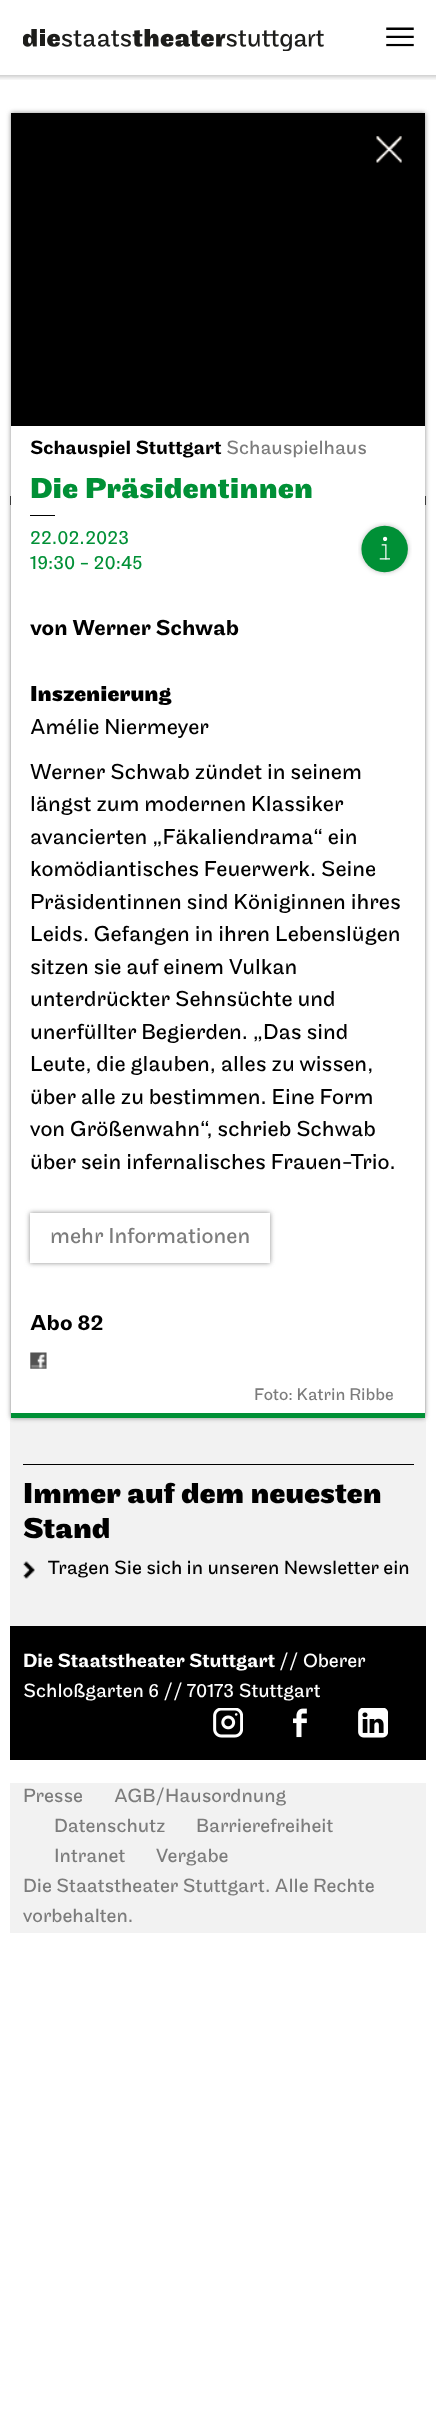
<svg xmlns="http://www.w3.org/2000/svg" width="436" height="2410">
	<defs>
		<clipPath id="clip1"><path d="M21 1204H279V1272H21ZM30 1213H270V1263H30Z" clip-rule="evenodd" /></clipPath>
	</defs>
	<rect width="100%" height="100%" fill="#FFFFFF" />
	<rect x="425" y="496" width="1" height="9" fill="#000000" />
	<rect x="10" y="496" width="1" height="9" fill="#000000" />
	<rect x="10" y="505" width="416" height="1121" fill="#F2F2F2" />
	<rect x="11" y="113" width="414" height="1305" fill="#8B8B8B" filter="blur(2.5px)" />
	<rect x="11" y="426" width="414" height="987" fill="#FFFFFF" />
	<rect x="11" y="1413" width="414" height="5" fill="#009036" />
	<rect x="11" y="113" width="414" height="313" fill="#000000" />
	<image x="376" y="136" width="26" height="27" href="assets/img1.png" />
	<text x="30" y="454" font-family="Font" font-size="20" font-weight="500" fill="#000000">Schauspiel Stuttgart</text>
	<text x="226" y="454" font-family="Font" font-size="20" fill="#7C7C7C">Schauspielhaus</text>
	<text x="30" y="498" font-family="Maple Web" font-size="30" font-weight="700" letter-spacing="0.25" fill="#009036">Die Präsidentinnen</text>
	<rect x="30" y="515" width="25" height="1" fill="#000000" />
	<g font-family="Font" font-size="20" fill="#009036">
		<text x="30" y="544">22.02.2023</text>
		<text x="30" y="569">19:30 - 20:45</text>
	</g>
	<image x="358" y="522" width="54" height="54" href="assets/img2.png" />
	<text x="30" y="635" font-family="Font" font-size="22.5" font-weight="500" fill="#000000">von Werner Schwab</text>
	<text x="30" y="701" font-family="Maple Web" font-size="22.5" font-weight="700" fill="#000000">Inszenierung</text>
	<g font-family="Font" font-size="22.5" fill="#000000">
		<text x="30" y="734">Amélie Niermeyer</text>
		<text x="30" y="779">Werner Schwab zündet in seinem</text>
		<text x="30" y="811">längst zum modernen Klassiker</text>
		<text x="30" y="844">avancierten „Fäkaliendrama“ ein</text>
		<text x="30" y="876">komödiantisches Feuerwerk. Seine</text>
		<text x="30" y="909">Präsidentinnen sind Königinnen ihres</text>
		<text x="30" y="941">Leids. Gefangen in ihren Lebenslügen</text>
		<text x="30" y="974">sitzen sie auf einem Vulkan</text>
		<text x="30" y="1006">unterdrückter Sehnsüchte und</text>
		<text x="30" y="1039">unerfüllter Begierden. „Das sind</text>
		<text x="30" y="1071">Leute, die glauben, alles zu wissen,</text>
		<text x="30" y="1104">über alle zu bestimmen. Eine Form</text>
		<text x="30" y="1136">von Größenwahn“, schrieb Schwab</text>
		<text x="30" y="1169">über sein infernalisches Frauen-Trio.</text>
	</g>
	<g clip-path="url(#clip1)">
		<rect x="30" y="1213" width="240" height="50" fill="#8B8B8B" filter="blur(2.5px)" />
	</g>
	<text x="50" y="1243" font-family="Font" font-size="22.5" fill="#7C7C7C">mehr Informationen</text>
	<text x="30" y="1330" font-family="Font" font-size="22.5" font-weight="500" fill="#000000">Abo 82</text>
	<image x="30" y="1352" width="17" height="17" href="assets/img3.png" />
	<text x="254" y="1400" font-family="Font" font-size="17.5" fill="#7C7C7C">Foto: Katrin Ribbe</text>
	<image x="23" y="29" width="301" height="22" href="assets/img4.png" />
	<image x="386" y="27" width="28" height="20" href="assets/img5.png" />
	<image x="0" y="75" width="436" height="5" href="assets/img6.png" />
	<rect x="23" y="1464" width="391" height="1" fill="#000000" />
	<g font-family="Maple Web" font-size="30" font-weight="700" fill="#000000">
		<text x="23" y="1503">Immer auf dem neuesten</text>
		<text x="23" y="1538">Stand</text>
	</g>
	<image x="23" y="1561" width="12" height="18" href="assets/img7.png" />
	<text x="48" y="1574" font-family="Font" font-size="20" fill="#000000">Tragen Sie sich in unseren Newsletter ein</text>
	<rect x="10" y="1626" width="416" height="134" fill="#000000" />
	<text x="23" y="1667" font-family="Font" font-size="20" font-weight="500" fill="#FFFFFF">Die Staatstheater Stuttgart</text>
	<g font-family="Font" font-size="20" fill="#FFFFFF">
		<text x="279" y="1667">// Oberer</text>
		<text x="23" y="1697">Schloßgarten 6 // 70173 Stuttgart</text>
	</g>
	<image x="213" y="1708" width="30" height="30" href="assets/img8.png" />
	<image x="293" y="1708" width="14" height="30" href="assets/img9.png" />
	<image x="358" y="1708" width="30" height="30" href="assets/img10.png" />
	<rect x="10" y="1783" width="416" height="150" fill="#F2F2F2" />
	<g font-family="Font" font-size="20" fill="#7C7C7C">
		<text x="23" y="1802">Presse</text>
		<text x="114" y="1802">AGB/Hausordnung</text>
		<text x="54" y="1832">Datenschutz</text>
		<text x="196" y="1832">Barrierefreiheit</text>
		<text x="54" y="1862">Intranet</text>
		<text x="156" y="1862">Vergabe</text>
		<text x="23" y="1892">Die Staatstheater Stuttgart. Alle Rechte</text>
		<text x="23" y="1922">vorbehalten.</text>
	</g>
</svg>
